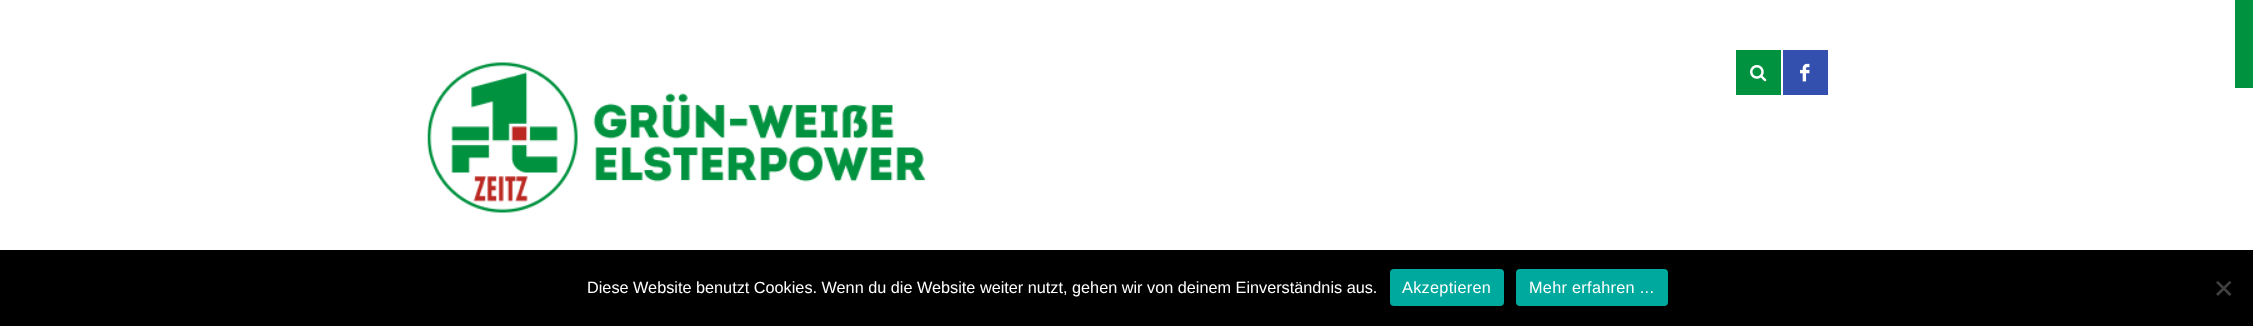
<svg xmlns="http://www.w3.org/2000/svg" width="2253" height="326">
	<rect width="100%" height="100%" fill="#FFFFFF" />
	<image x="427" y="62" width="499" height="151" href="assets/img1.png" />
	<rect x="1736" y="50" width="45" height="45" fill="#00923F" />
	<image x="1750" y="65" width="17" height="17" href="assets/img2.png" />
	<rect x="1783" y="50" width="45" height="45" fill="#3350AE" />
	<image x="1800" y="63" width="10" height="19" href="assets/img3.png" />
	<rect x="2235" y="0" width="18" height="88" fill="#00923F" />
	<rect x="0" y="250" width="2253" height="76" fill="#000000" />
	<text x="587" y="293" font-family="Liberation Sans" font-size="16.25" fill="#FFFFFF">Diese Website benutzt Cookies. Wenn du die Website weiter nutzt, gehen wir von deinem Einverständnis aus.</text>
	<rect x="1390" y="269" width="114" height="37" rx="4" fill="#00A99D" />
	<text x="1402" y="293" font-family="Liberation Sans" font-size="16.25" letter-spacing="0.3" fill="#FFFFFF">Akzeptieren</text>
	<rect x="1516" y="269" width="152" height="37" rx="4" fill="#00A99D" />
	<text x="1529" y="293" font-family="Liberation Sans" font-size="16.25" letter-spacing="0.3" fill="#FFFFFF">Mehr erfahren ...</text>
	<path d="M2229.5 281L2231.5 282.5L2218 296L2216 294Z" fill="#404040" />
	<path d="M2216 282.5L2218 281L2231.5 294L2229.5 296Z" fill="#404040" />
</svg>
